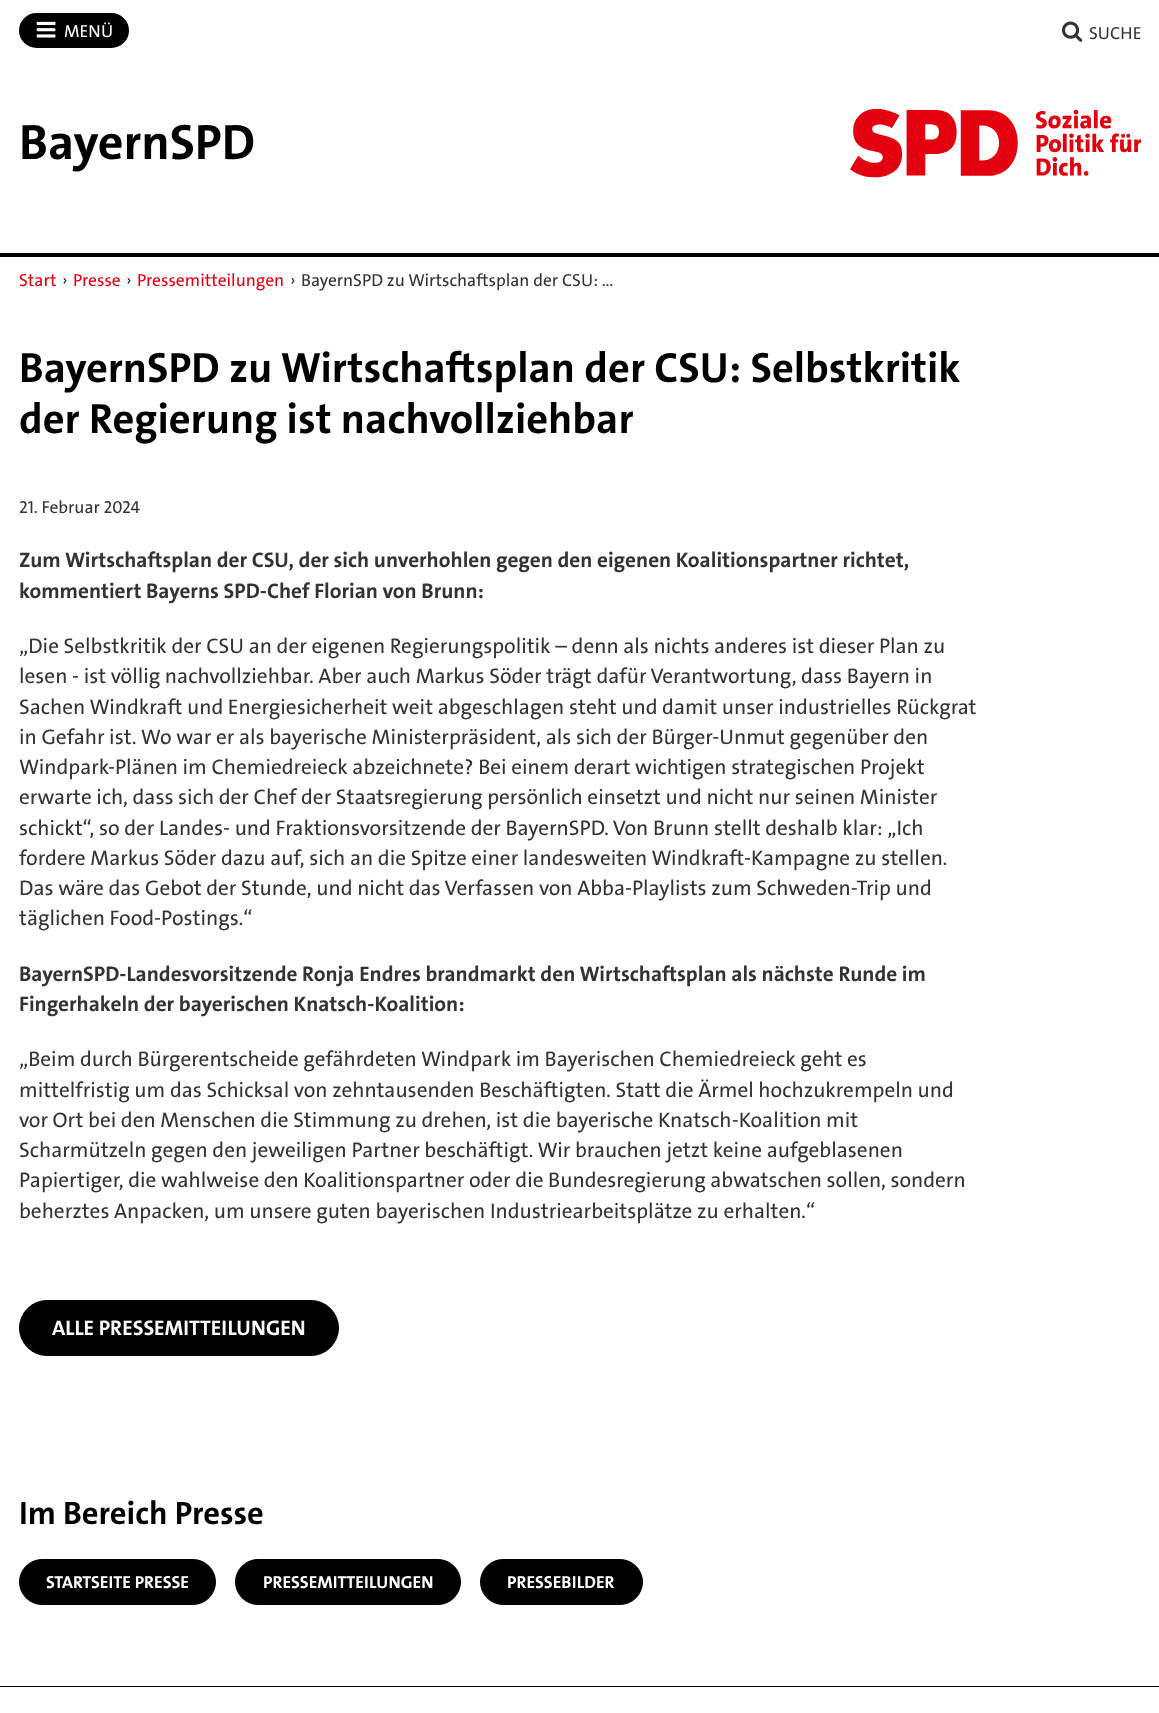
<svg xmlns="http://www.w3.org/2000/svg" width="1159" height="1713">
	<rect width="100%" height="100%" fill="#FFFFFF" />
	<rect x="20.5" y="14.5" width="107" height="32" rx="16" fill="#000000" stroke="#000000" stroke-width="3" />
	<image x="36" y="21" width="20" height="17" href="assets/img1.png" />
	<text x="64" y="37" font-family="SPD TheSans" font-size="17.5" font-weight="500" fill="#FFFFFF">MENÜ</text>
	<image x="1061" y="21" width="22" height="21" href="assets/img2.png" />
	<text x="1089" y="39" font-family="SPD TheSans" font-size="17.5" font-weight="500" fill="#333333">SUCHE</text>
	<text x="19" y="159" font-family="SPD TheSans" font-size="50" font-weight="700" fill="#000000">BayernSPD</text>
	<image x="850" y="109" width="291" height="69" href="assets/img3.png" />
	<rect x="0" y="253" width="1159" height="4" fill="#000000" />
	<text x="19" y="286" font-family="SPD TheSans" font-size="17.5" font-weight="500" fill="#E3000F">Start</text>
	<text x="62" y="286" font-family="SPD TheSans" font-size="17.5" font-weight="500" fill="#333333">›</text>
	<text x="73" y="286" font-family="SPD TheSans" font-size="17.5" font-weight="500" fill="#E3000F">Presse</text>
	<text x="126" y="286" font-family="SPD TheSans" font-size="17.5" font-weight="500" fill="#333333">›</text>
	<text x="137" y="286" font-family="SPD TheSans" font-size="17.5" font-weight="500" fill="#E3000F">Pressemitteilungen</text>
	<g font-family="SPD TheSans" font-size="17.5" font-weight="500" fill="#333333">
		<text x="290" y="286">›</text>
		<text x="301" y="286">BayernSPD zu Wirtschaftsplan der CSU: …</text>
	</g>
	<g font-family="SPD TheSans" font-size="42.5" font-weight="700" fill="#000000">
		<text x="19" y="382">BayernSPD zu Wirtschaftsplan der CSU: Selbstkritik</text>
		<text x="19" y="433">der Regierung ist nachvollziehbar</text>
	</g>
	<text x="19" y="513" font-family="SPD TheSans" font-size="17.5" font-weight="500" fill="#333333">21. Februar 2024</text>
	<g font-family="SPD TheSans" font-size="21.25" font-weight="700" fill="#333333">
		<text x="19" y="567">Zum Wirtschaftsplan der CSU, der sich unverhohlen gegen den eigenen Koalitionspartner richtet,</text>
		<text x="19" y="598">kommentiert Bayerns SPD-Chef Florian von Brunn:</text>
	</g>
	<g font-family="SPD TheSans" font-size="21.25" font-weight="500" fill="#333333">
		<text x="19" y="653">„Die Selbstkritik der CSU an der eigenen Regierungspolitik – denn als nichts anderes ist dieser Plan zu</text>
		<text x="19" y="683">lesen - ist völlig nachvollziehbar. Aber auch Markus Söder trägt dafür Verantwortung, dass Bayern in</text>
		<text x="19" y="714">Sachen Windkraft und Energiesicherheit weit abgeschlagen steht und damit unser industrielles Rückgrat</text>
		<text x="19" y="744">in Gefahr ist. Wo war er als bayerische Ministerpräsident, als sich der Bürger-Unmut gegenüber den</text>
		<text x="19" y="774">Windpark-Plänen im Chemiedreieck abzeichnete? Bei einem derart wichtigen strategischen Projekt</text>
		<text x="19" y="804">erwarte ich, dass sich der Chef der Staatsregierung persönlich einsetzt und nicht nur seinen Minister</text>
		<text x="19" y="835">schickt“, so der Landes- und Fraktionsvorsitzende der BayernSPD. Von Brunn stellt deshalb klar: „Ich</text>
		<text x="19" y="865">fordere Markus Söder dazu auf, sich an die Spitze einer landesweiten Windkraft-Kampagne zu stellen.</text>
		<text x="19" y="895">Das wäre das Gebot der Stunde, und nicht das Verfassen von Abba-Playlists zum Schweden-Trip und</text>
		<text x="19" y="925">täglichen Food-Postings.“</text>
	</g>
	<g font-family="SPD TheSans" font-size="21.25" font-weight="700" fill="#333333">
		<text x="19" y="981">BayernSPD-Landesvorsitzende Ronja Endres brandmarkt den Wirtschaftsplan als nächste Runde im</text>
		<text x="19" y="1011">Fingerhakeln der bayerischen Knatsch-Koalition:</text>
	</g>
	<g font-family="SPD TheSans" font-size="21.25" font-weight="500" fill="#333333">
		<text x="19" y="1066">„Beim durch Bürgerentscheide gefährdeten Windpark im Bayerischen Chemiedreieck geht es</text>
		<text x="19" y="1097">mittelfristig um das Schicksal von zehntausenden Beschäftigten. Statt die Ärmel hochzukrempeln und</text>
		<text x="19" y="1127">vor Ort bei den Menschen die Stimmung zu drehen, ist die bayerische Knatsch-Koalition mit</text>
		<text x="19" y="1157">Scharmützeln gegen den jeweiligen Partner beschäftigt. Wir brauchen jetzt keine aufgeblasenen</text>
		<text x="19" y="1187">Papiertiger, die wahlweise den Koalitionspartner oder die Bundesregierung abwatschen sollen, sondern</text>
		<text x="19" y="1218">beherztes Anpacken, um unsere guten bayerischen Industriearbeitsplätze zu erhalten.“</text>
	</g>
	<rect x="19.5" y="1300.5" width="319" height="55" rx="27.5" fill="#000000" stroke="#000000" />
	<text x="52" y="1335" font-family="SPD TheSans" font-size="21.25" font-weight="700" fill="#FFFFFF">ALLE PRESSEMITTEILUNGEN</text>
	<text x="19" y="1524" font-family="SPD TheSans" font-size="32.5" font-weight="700" fill="#000000">Im Bereich Presse</text>
	<rect x="19.5" y="1559.5" width="196" height="45" rx="22.5" fill="#000000" stroke="#000000" />
	<text x="46" y="1588" font-family="SPD TheSans" font-size="17.5" font-weight="700" fill="#FFFFFF">STARTSEITE PRESSE</text>
	<rect x="235.5" y="1559.5" width="225" height="45" rx="22.5" fill="#000000" stroke="#000000" />
	<text x="263" y="1588" font-family="SPD TheSans" font-size="17.5" font-weight="700" fill="#FFFFFF">PRESSEMITTEILUNGEN</text>
	<rect x="480.5" y="1559.5" width="162" height="45" rx="22.5" fill="#000000" stroke="#000000" />
	<text x="507" y="1588" font-family="SPD TheSans" font-size="17.5" font-weight="700" fill="#FFFFFF">PRESSEBILDER</text>
	<rect x="0" y="1686" width="1159" height="1" fill="#000000" />
</svg>
